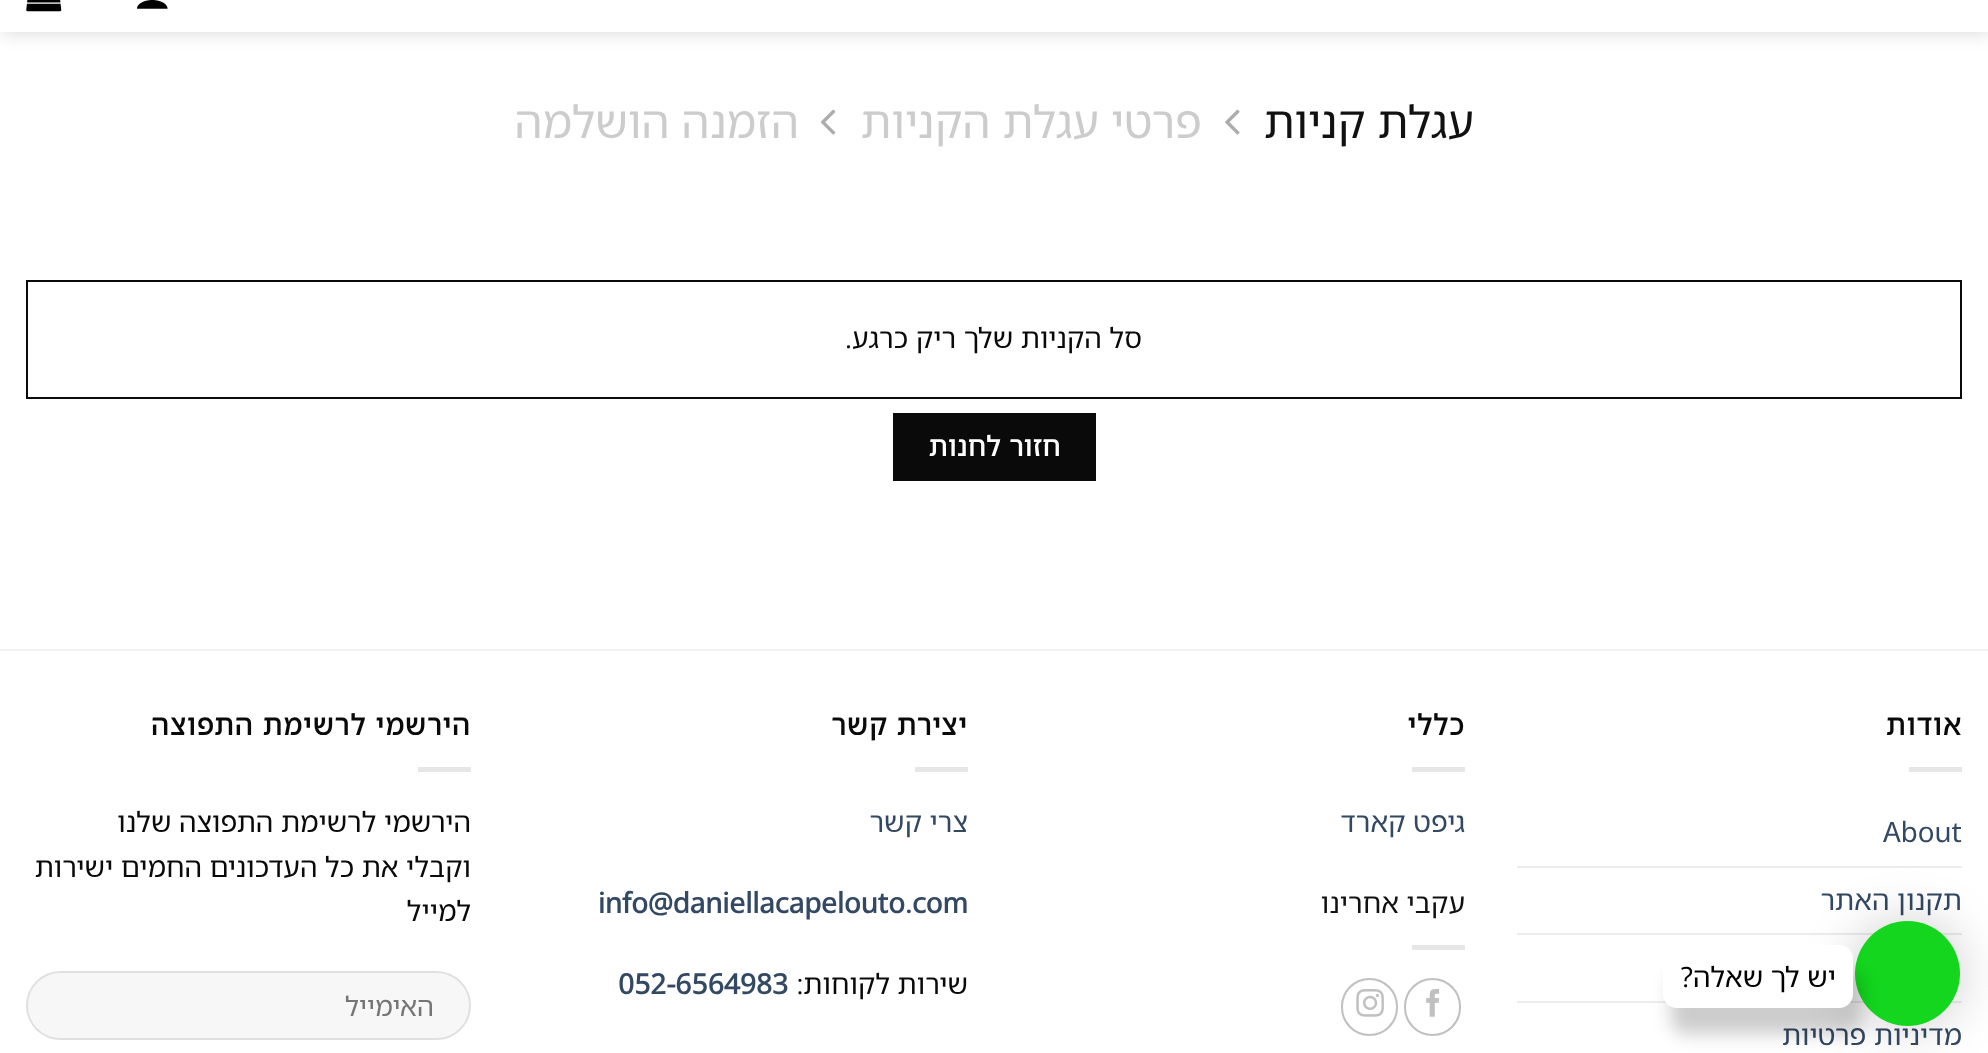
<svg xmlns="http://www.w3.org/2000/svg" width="1988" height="1053">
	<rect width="100%" height="100%" fill="#FFFFFF" />
	<rect x="2" y="-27" width="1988" height="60" fill="#000000" fill-opacity="0.15" filter="blur(9px)" />
	<rect x="0" y="0" width="1988" height="32" fill="#FFFFFF" />
	<image x="137" y="0" width="31" height="9" href="assets/img1.png" />
	<image x="26" y="0" width="36" height="12" href="assets/img2.png" />
	<text x="1474" y="138" font-family="Noto Sans Hebrew" font-size="44.75" font-weight="100" direction="rtl" fill="#111111">עגלת קניות</text>
	<image x="1225" y="109" width="15" height="26" href="assets/img3.png" />
	<text x="1202" y="138" font-family="Noto Sans Hebrew" font-size="44.75" font-weight="100" direction="rtl" fill="#CCCCCC">פרטי עגלת הקניות</text>
	<image x="820" y="109" width="16" height="26" href="assets/img4.png" />
	<text x="799" y="138" font-family="Noto Sans Hebrew" font-size="44.75" font-weight="100" direction="rtl" fill="#CCCCCC">הזמנה הושלמה</text>
	<rect x="27" y="281" width="1934" height="117" fill="none" stroke="#0A0A0A" stroke-width="2" />
	<text x="1142" y="348" font-family="Noto Sans Hebrew" font-size="28" font-weight="100" direction="rtl" fill="#0A0A0A">סל הקניות שלך ריק כרגע.</text>
	<rect x="893" y="413" width="203" height="68" fill="#0A0A0A" />
	<text x="1061" y="456" font-family="Noto Sans Hebrew" font-size="27" font-weight="700" letter-spacing="0.75" direction="rtl" fill="#FFFFFF">חזור לחנות</text>
	<rect x="0" y="649" width="1988" height="2" fill="#F2F2F2" />
	<text x="1962" y="735" font-family="Noto Sans Hebrew" font-size="28" font-weight="700" letter-spacing="1.4" direction="rtl" fill="#0A0A0A">אודות</text>
	<rect x="1909" y="767" width="53" height="5" fill="#E6E6E6" />
	<text x="1883" y="842" font-family="Noto Sans Hebrew" font-size="28" font-weight="100" fill="#334862">About</text>
	<rect x="1517" y="866" width="445" height="2" fill="#ECECEC" />
	<text x="1962" y="910" font-family="Noto Sans Hebrew" font-size="28" font-weight="100" direction="rtl" fill="#334862">תקנון האתר</text>
	<rect x="1517" y="933" width="445" height="2" fill="#ECECEC" />
	<rect x="1517" y="1001" width="445" height="2" fill="#ECECEC" />
	<text x="1962" y="1045" font-family="Noto Sans Hebrew" font-size="28" font-weight="100" direction="rtl" fill="#334862">מדיניות פרטיות</text>
	<text x="1465" y="735" font-family="Noto Sans Hebrew" font-size="28" font-weight="700" letter-spacing="1.4" direction="rtl" fill="#0A0A0A">כללי</text>
	<rect x="1412" y="767" width="53" height="5" fill="#E6E6E6" />
	<text x="1465" y="832" font-family="Noto Sans Hebrew" font-size="28" font-weight="100" direction="rtl" fill="#334862">גיפט קארד</text>
	<text x="1465" y="913" font-family="Noto Sans Hebrew" font-size="28" font-weight="100" direction="rtl" fill="#111111">עקבי אחרינו</text>
	<rect x="1412" y="945" width="53" height="5" fill="#E6E6E6" />
	<rect x="1405" y="979" width="55" height="56" rx="27.5" fill="none" stroke="#C0C0C0" stroke-width="2" />
	<image x="1426" y="989" width="14" height="28" href="assets/img5.png" />
	<rect x="1342" y="979" width="55" height="56" rx="27.5" fill="none" stroke="#C0C0C0" stroke-width="2" />
	<image x="1356" y="989" width="28" height="28" href="assets/img6.png" />
	<text x="968" y="735" font-family="Noto Sans Hebrew" font-size="28" font-weight="700" letter-spacing="1.4" direction="rtl" fill="#0A0A0A">יצירת קשר</text>
	<rect x="915" y="767" width="53" height="5" fill="#E6E6E6" />
	<text x="968" y="832" font-family="Noto Sans Hebrew" font-size="28" font-weight="100" direction="rtl" fill="#334862">צרי קשר</text>
	<text x="598" y="913" font-family="Noto Sans Hebrew" font-size="28" font-weight="700" fill="#334862">info@daniellacapelouto.com</text>
	<text x="968" y="994" font-family="Noto Sans Hebrew" font-size="28" font-weight="100" direction="rtl" fill="#0A0A0A">שירות לקוחות:</text>
	<text x="618" y="994" font-family="Noto Sans Hebrew" font-size="28" font-weight="700" fill="#334862">052-6564983</text>
	<text x="471" y="735" font-family="Noto Sans Hebrew" font-size="28" font-weight="700" letter-spacing="1.4" direction="rtl" fill="#0A0A0A">הירשמי לרשימת התפוצה</text>
	<rect x="418" y="767" width="53" height="5" fill="#E6E6E6" />
	<g font-family="Noto Sans Hebrew" font-size="28" font-weight="100" direction="rtl" fill="#0A0A0A">
		<text x="471" y="832">הירשמי לרשימת התפוצה שלנו</text>
		<text x="471" y="877">וקבלי את כל העדכונים החמים ישירות</text>
		<text x="471" y="921">למייל</text>
	</g>
	<rect x="26" y="971" width="445" height="69" rx="34.5" fill="#F7F7F7" />
	<rect x="27" y="972" width="443" height="67" rx="33.5" fill="none" stroke="#000000" stroke-opacity="0.09" stroke-width="2" />
	<text x="434" y="1016" font-family="Noto Sans Hebrew" font-size="27" font-weight="100" direction="rtl" fill="#757575">האימייל</text>
	<rect x="1855" y="921" width="105" height="105" rx="52.5" fill="#000000" fill-opacity="0.2" filter="blur(26px)" />
	<circle cx="1907.5" cy="973.5" r="52.5" fill="#14D61E" />
	<rect x="1671" y="971" width="191" height="63" rx="14" fill="#000000" fill-opacity="0.2" filter="blur(9px)" />
	<rect x="1663" y="945" width="190" height="63" rx="14" fill="#FFFFFF" />
	<text x="1836" y="987" font-family="Noto Sans Hebrew" font-size="28" font-weight="100" direction="rtl" fill="#000000">יש לך שאלה?</text>
</svg>
